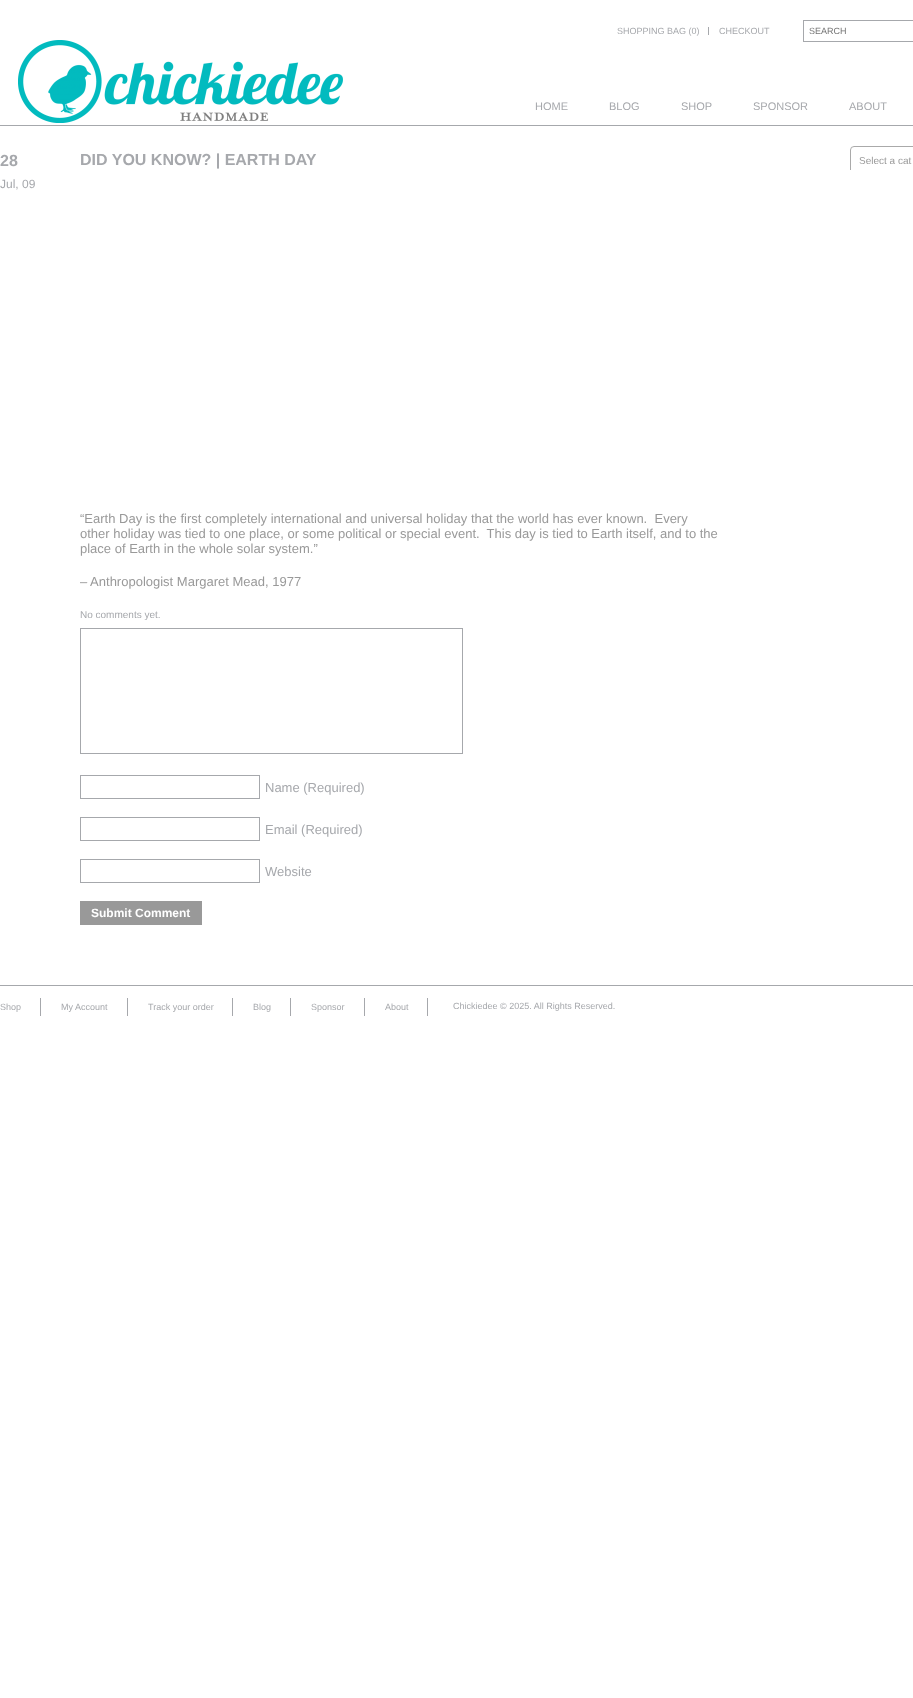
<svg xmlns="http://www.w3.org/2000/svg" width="913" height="1698">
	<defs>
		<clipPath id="clip1"><rect x="850" y="146" width="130" height="24" /></clipPath>
	</defs>
	<rect width="100%" height="100%" fill="#FFFFFF" />
	<rect x="0" y="125" width="913" height="1" fill="#A6A8AC" />
	<image x="18" y="40" width="325" height="83" href="assets/img1.png" />
	<rect x="708" y="27" width="1" height="8" fill="#A6A8AC" />
	<g font-family="Liberation Sans" font-size="9" fill="#A6A8AC">
		<text x="617" y="34">SHOPPING BAG (0)</text>
		<text x="719" y="34">CHECKOUT</text>
	</g>
	<rect x="803" y="20" width="110" height="1" fill="#A6A8AC" />
	<rect x="803" y="41" width="110" height="1" fill="#A6A8AC" />
	<rect x="803" y="20" width="1" height="22" fill="#A6A8AC" />
	<text x="809" y="34" font-family="Liberation Sans" font-size="9" fill="#757575">SEARCH</text>
	<g font-family="Liberation Sans" font-size="11" fill="#A6A8AC">
		<text x="535" y="110">HOME</text>
		<text x="609" y="110">BLOG</text>
		<text x="681" y="110">SHOP</text>
		<text x="753" y="110">SPONSOR</text>
		<text x="849" y="110">ABOUT</text>
	</g>
	<text x="0" y="166" font-family="Liberation Sans" font-size="16" font-weight="700" fill="#A6A8AC">28</text>
	<text x="0" y="188" font-family="Liberation Sans" font-size="12" fill="#A6A8AC">Jul, 09</text>
	<text x="80" y="165" font-family="Liberation Sans" font-size="16" font-weight="700" fill="#A6A8AC">DID YOU KNOW? | EARTH DAY</text>
	<g font-family="Liberation Sans" font-size="13" fill="#999999">
		<text x="80" y="523" xml:space="preserve">“Earth Day is the first completely international and universal holiday that the world has ever known.  Every</text>
		<text x="80" y="538" xml:space="preserve">other holiday was tied to one place, or some political or special event.  This day is tied to Earth itself, and to the</text>
		<text x="80" y="553">place of Earth in the whole solar system.”</text>
		<text x="80" y="586">– Anthropologist Margaret Mead, 1977</text>
	</g>
	<text x="80" y="618" font-family="Liberation Sans" font-size="10" fill="#A6A8AC">No comments yet.</text>
	<rect x="80.5" y="628.5" width="382" height="125" fill="none" stroke="#A6A8AC" />
	<rect x="80.5" y="775.5" width="179" height="23" fill="none" stroke="#A6A8AC" />
	<text x="265" y="792" font-family="Liberation Sans" font-size="13" fill="#A6A8AC">Name (Required)</text>
	<rect x="80.5" y="817.5" width="179" height="23" fill="none" stroke="#A6A8AC" />
	<text x="265" y="834" font-family="Liberation Sans" font-size="13" fill="#A6A8AC">Email (Required)</text>
	<rect x="80.5" y="859.5" width="179" height="23" fill="none" stroke="#A6A8AC" />
	<text x="265" y="876" font-family="Liberation Sans" font-size="13" fill="#A6A8AC">Website</text>
	<rect x="80" y="901" width="122" height="24" fill="#999999" />
	<text x="91" y="917" font-family="Liberation Sans" font-size="12" font-weight="700" fill="#FFFFFF">Submit Comment</text>
	<g clip-path="url(#clip1)">
		<rect x="850.5" y="146.5" width="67" height="27" rx="3.5" fill="none" stroke="#AAAAAA" />
	</g>
	<text x="859" y="164" font-family="Liberation Sans" font-size="10" fill="#999999">Select a cat</text>
	<rect x="0" y="985" width="913" height="1" fill="#A6A8AC" />
	<rect x="40" y="998" width="1" height="18" fill="#A6A8AC" />
	<text x="0" y="1010" font-family="Liberation Sans" font-size="9" fill="#A6A8AC">Shop</text>
	<rect x="127" y="998" width="1" height="18" fill="#A6A8AC" />
	<text x="61" y="1010" font-family="Liberation Sans" font-size="9" fill="#A6A8AC">My Account</text>
	<rect x="232" y="998" width="1" height="18" fill="#A6A8AC" />
	<text x="148" y="1010" font-family="Liberation Sans" font-size="9" fill="#A6A8AC">Track your order</text>
	<rect x="290" y="998" width="1" height="18" fill="#A6A8AC" />
	<text x="253" y="1010" font-family="Liberation Sans" font-size="9" fill="#A6A8AC">Blog</text>
	<rect x="364" y="998" width="1" height="18" fill="#A6A8AC" />
	<text x="311" y="1010" font-family="Liberation Sans" font-size="9" fill="#A6A8AC">Sponsor</text>
	<rect x="427" y="998" width="1" height="18" fill="#A6A8AC" />
	<g font-family="Liberation Sans" font-size="9" fill="#A6A8AC">
		<text x="385" y="1010">About</text>
		<text x="453" y="1009">Chickiedee © 2025. All Rights Reserved.</text>
	</g>
</svg>
